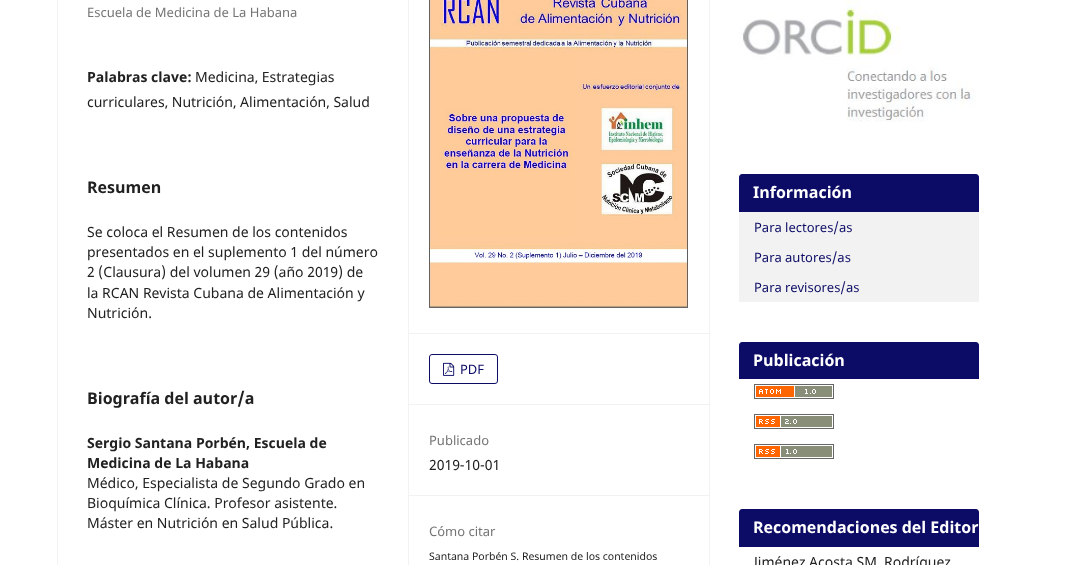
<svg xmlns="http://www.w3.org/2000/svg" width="1065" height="565">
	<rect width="100%" height="100%" fill="#FFFFFF" />
	<rect x="57" y="0" width="1" height="565" fill="#F2F2F2" />
	<text x="87" y="17" font-family="Noto Sans" font-size="13" fill="#757575">Escuela de Medicina de La Habana</text>
	<text x="87" y="82" font-family="Noto Sans" font-size="14" font-weight="700" fill="#212121">Palabras clave:</text>
	<g font-family="Noto Sans" font-size="14" fill="#212121">
		<text x="195" y="82">Medicina, Estrategias</text>
		<text x="87" y="107">curriculares, Nutrición, Alimentación, Salud</text>
	</g>
	<text x="87" y="193" font-family="Noto Sans" font-size="16" font-weight="700" fill="#212121">Resumen</text>
	<g font-family="Noto Sans" font-size="14" fill="#212121">
		<text x="87" y="237">Se coloca el Resumen de los contenidos</text>
		<text x="87" y="257">presentados en el suplemento 1 del número</text>
		<text x="87" y="277">2 (Clausura) del volumen 29 (año 2019) de</text>
		<text x="87" y="298">la RCAN Revista Cubana de Alimentación y</text>
		<text x="87" y="318">Nutrición.</text>
	</g>
	<text x="87" y="404" font-family="Noto Sans" font-size="16" font-weight="700" fill="#212121">Biografía del autor/a</text>
	<g font-family="Noto Sans" font-size="14" font-weight="700" fill="#212121">
		<text x="87" y="448">Sergio Santana Porbén, Escuela de</text>
		<text x="87" y="468">Medicina de La Habana</text>
	</g>
	<g font-family="Noto Sans" font-size="14" fill="#212121">
		<text x="87" y="488">Médico, Especialista de Segundo Grado en</text>
		<text x="87" y="508">Bioquímica Clínica. Profesor asistente.</text>
		<text x="87" y="528">Máster en Nutrición en Salud Pública.</text>
	</g>
	<rect x="408" y="0" width="1" height="565" fill="#F2F2F2" />
	<rect x="409" y="333" width="300" height="1" fill="#F2F2F2" />
	<image x="429" y="0" width="259" height="308" href="assets/img1.png" />
	<rect x="409" y="404" width="300" height="1" fill="#F2F2F2" />
	<rect x="429.5" y="354.5" width="68" height="29" rx="2.5" fill="none" stroke="#0C0C66" />
	<image x="443" y="362" width="12" height="14" href="assets/img2.png" />
	<text x="460" y="374" font-family="Noto Sans" font-size="13" fill="#0C0C66">PDF</text>
	<rect x="409" y="495" width="300" height="1" fill="#F2F2F2" />
	<text x="429" y="445" font-family="Noto Sans" font-size="13" fill="#757575">Publicado</text>
	<text x="429" y="470" font-family="Noto Sans" font-size="14" fill="#212121">2019-10-01</text>
	<text x="429" y="536" font-family="Noto Sans" font-size="13" fill="#757575">Cómo citar</text>
	<text x="429" y="560" font-family="Noto Sans" font-size="10.5" fill="#212121">Santana Porbén S. Resumen de los contenidos</text>
	<rect x="709" y="0" width="1" height="565" fill="#F2F2F2" />
	<image x="739" y="0" width="237" height="122" href="assets/img3.png" />
	<path d="M742 174H976C977.5 174 979 175.5 979 177V212H739V177C739 175.5 740.5 174 742 174Z" fill="#0C0C66" />
	<text x="753" y="198" font-family="Noto Sans" font-size="16" font-weight="700" fill="#FFFFFF">Información</text>
	<rect x="739" y="212" width="240" height="90" fill="#F2F2F2" />
	<g font-family="Noto Sans" font-size="13" fill="#0C0C66">
		<text x="754" y="232">Para lectores/as</text>
		<text x="754" y="262">Para autores/as</text>
		<text x="754" y="292">Para revisores/as</text>
	</g>
	<path d="M742 342H976C977.5 342 979 343.5 979 345V379H739V345C739 343.5 740.5 342 742 342Z" fill="#0C0C66" />
	<text x="753" y="366" font-family="Noto Sans" font-size="16" font-weight="700" fill="#FFFFFF">Publicación</text>
	<image x="754" y="384" width="80" height="15" href="assets/img4.png" />
	<image x="754" y="414" width="80" height="15" href="assets/img5.png" />
	<image x="754" y="444" width="80" height="15" href="assets/img6.png" />
	<path d="M742 509H976C977.5 509 979 510.5 979 512V547H739V512C739 510.5 740.5 509 742 509Z" fill="#0C0C66" />
	<text x="753" y="533" font-family="Noto Sans" font-size="16" font-weight="700" fill="#FFFFFF">Recomendaciones del Editor</text>
	<text x="754" y="567" font-family="Noto Sans" font-size="14" fill="#212121">Jiménez Acosta SM, Rodríguez</text>
</svg>
